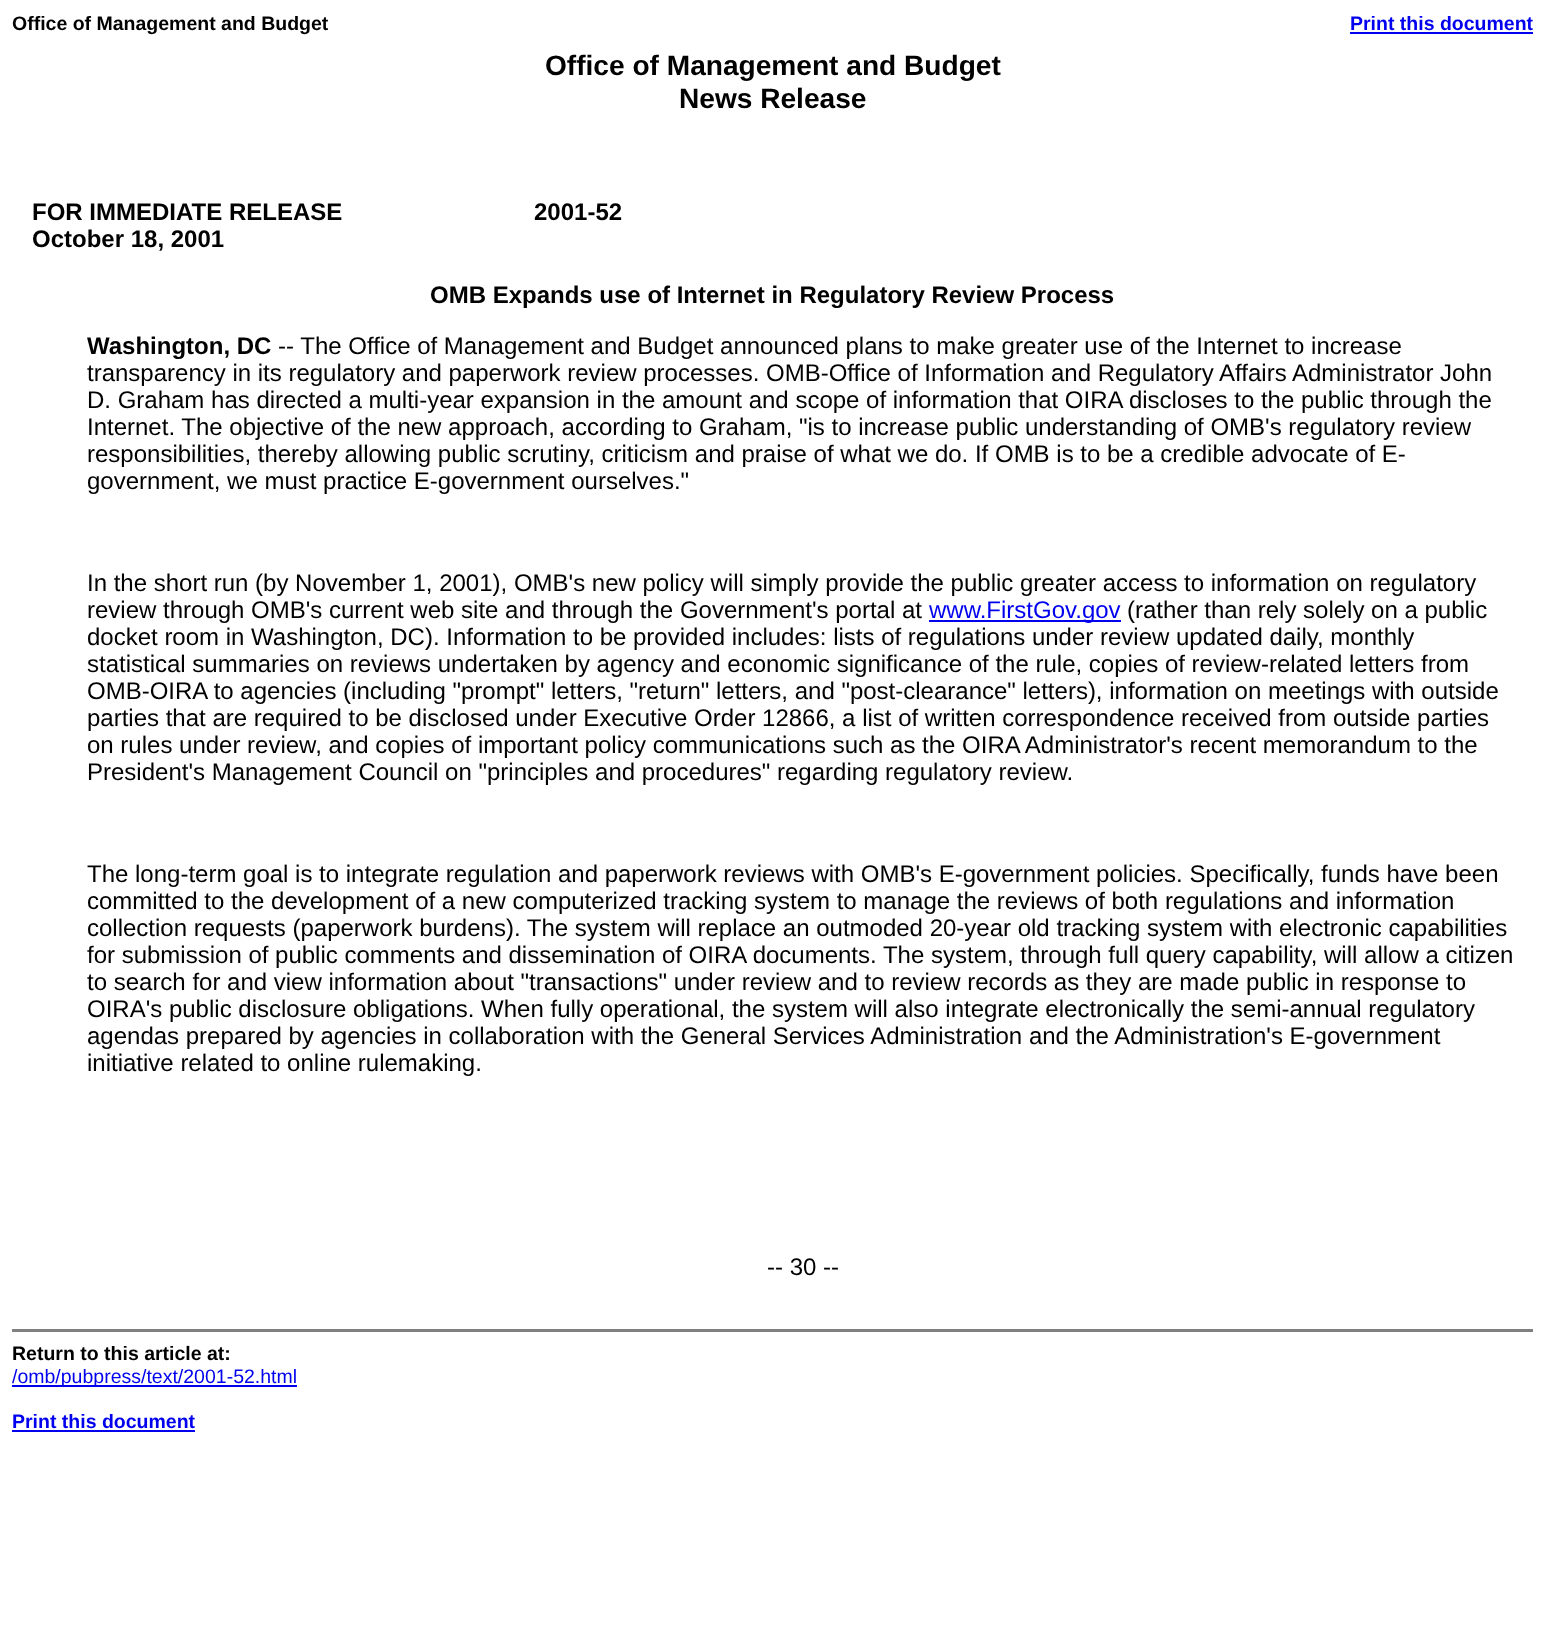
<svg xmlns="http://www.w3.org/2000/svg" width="1545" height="1632">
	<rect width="100%" height="100%" fill="#FFFFFF" />
	<text x="12" y="30" font-family="Liberation Sans" font-size="19.5" font-weight="700" fill="#000000">Office of Management and Budget</text>
	<text x="1350" y="30" font-family="Liberation Sans" font-size="19.5" font-weight="700" fill="#0000EE">Print this document</text>
	<rect x="1350" y="32" width="183" height="2" fill="#0000EE" />
	<g font-family="Liberation Sans" font-size="28.1" font-weight="700" fill="#000000">
		<text x="545" y="75">Office of Management and Budget</text>
		<text x="679" y="108">News Release</text>
	</g>
	<g font-family="Liberation Sans" font-size="24" font-weight="700" fill="#000000">
		<text x="32" y="220">FOR IMMEDIATE RELEASE</text>
		<text x="32" y="247">October 18, 2001</text>
		<text x="534" y="220">2001-52</text>
		<text x="430" y="303">OMB Expands use of Internet in Regulatory Review Process</text>
		<text x="87" y="354">Washington, DC</text>
	</g>
	<g font-family="Liberation Sans" font-size="24" fill="#000000">
		<text x="278" y="354">-- The Office of Management and Budget announced plans to make greater use of the Internet to increase</text>
		<text x="87" y="381">transparency in its regulatory and paperwork review processes. OMB-Office of Information and Regulatory Affairs Administrator John</text>
		<text x="87" y="408">D. Graham has directed a multi-year expansion in the amount and scope of information that OIRA discloses to the public through the</text>
		<text x="87" y="435">Internet. The objective of the new approach, according to Graham, "is to increase public understanding of OMB's regulatory review</text>
		<text x="87" y="462">responsibilities, thereby allowing public scrutiny, criticism and praise of what we do. If OMB is to be a credible advocate of E-</text>
		<text x="87" y="489">government, we must practice E-government ourselves."</text>
		<text x="87" y="591">In the short run (by November 1, 2001), OMB's new policy will simply provide the public greater access to information on regulatory</text>
		<text x="87" y="618">review through OMB's current web site and through the Government's portal at</text>
	</g>
	<rect x="929" y="620" width="192" height="2" fill="#0000EE" />
	<text x="929" y="618" font-family="Liberation Sans" font-size="24" fill="#0000EE">www.FirstGov.gov</text>
	<g font-family="Liberation Sans" font-size="24" fill="#000000">
		<text x="1127" y="618">(rather than rely solely on a public</text>
		<text x="87" y="645">docket room in Washington, DC). Information to be provided includes: lists of regulations under review updated daily, monthly</text>
		<text x="87" y="672">statistical summaries on reviews undertaken by agency and economic significance of the rule, copies of review-related letters from</text>
		<text x="87" y="699">OMB-OIRA to agencies (including "prompt" letters, "return" letters, and "post-clearance" letters), information on meetings with outside</text>
		<text x="87" y="726">parties that are required to be disclosed under Executive Order 12866, a list of written correspondence received from outside parties</text>
		<text x="87" y="753">on rules under review, and copies of important policy communications such as the OIRA Administrator's recent memorandum to the</text>
		<text x="87" y="780">President's Management Council on "principles and procedures" regarding regulatory review.</text>
		<text x="87" y="882">The long-term goal is to integrate regulation and paperwork reviews with OMB's E-government policies. Specifically, funds have been</text>
		<text x="87" y="909">committed to the development of a new computerized tracking system to manage the reviews of both regulations and information</text>
		<text x="87" y="936">collection requests (paperwork burdens). The system will replace an outmoded 20-year old tracking system with electronic capabilities</text>
		<text x="87" y="963">for submission of public comments and dissemination of OIRA documents. The system, through full query capability, will allow a citizen</text>
		<text x="87" y="990">to search for and view information about "transactions" under review and to review records as they are made public in response to</text>
		<text x="87" y="1017">OIRA's public disclosure obligations. When fully operational, the system will also integrate electronically the semi-annual regulatory</text>
		<text x="87" y="1044">agendas prepared by agencies in collaboration with the General Services Administration and the Administration's E-government</text>
		<text x="87" y="1071">initiative related to online rulemaking.</text>
		<text x="767" y="1275">-- 30 --</text>
	</g>
	<rect x="12" y="1329" width="1521" height="3" fill="#808080" />
	<text x="12" y="1360" font-family="Liberation Sans" font-size="19.5" font-weight="700" fill="#000000">Return to this article at:</text>
	<rect x="12" y="1385" width="285" height="2" fill="#0000EE" />
	<text x="12" y="1383" font-family="Liberation Sans" font-size="19.5" fill="#0000EE">/omb/pubpress/text/2001-52.html</text>
	<text x="12" y="1428" font-family="Liberation Sans" font-size="19.5" font-weight="700" fill="#0000EE">Print this document</text>
	<rect x="12" y="1430" width="183" height="2" fill="#0000EE" />
</svg>
